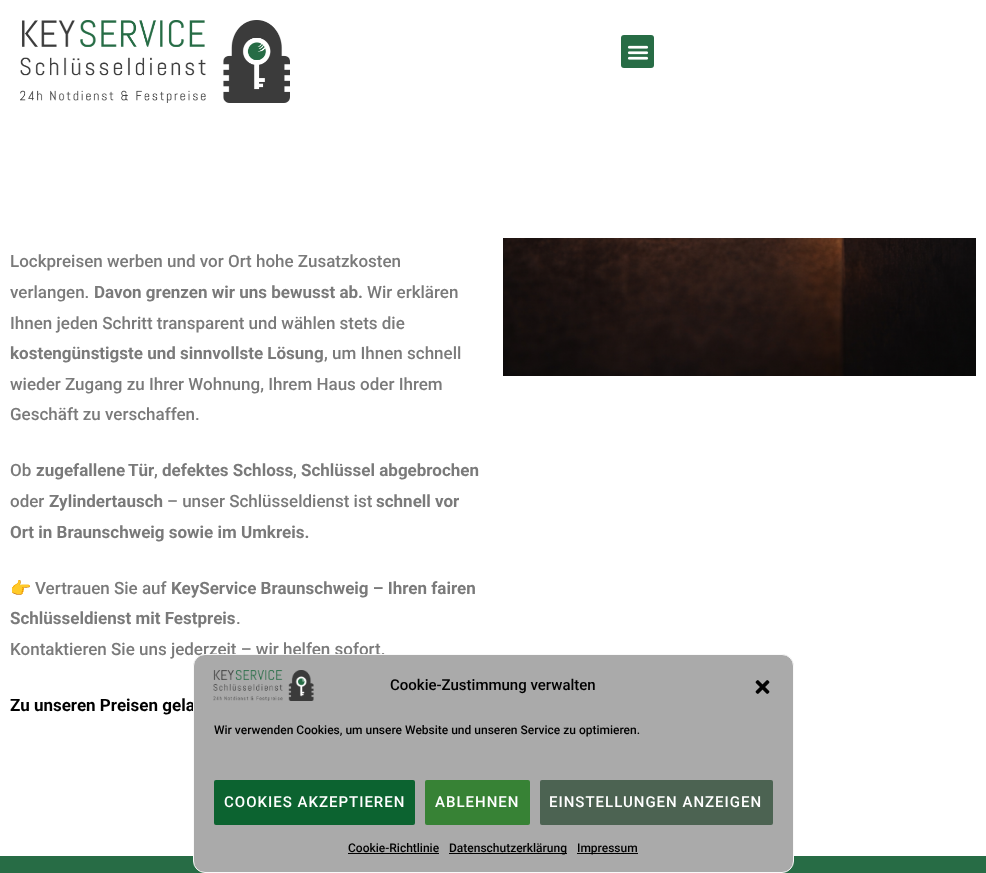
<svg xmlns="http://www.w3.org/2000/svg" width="986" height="873">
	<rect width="100%" height="100%" fill="#FFFFFF" />
	<image x="20" y="20" width="270" height="83" href="assets/img1.png" />
	<rect x="621" y="35" width="33" height="33" rx="3" fill="#276C45" />
	<image x="627" y="45" width="22" height="15" href="assets/img2.png" />
	<g font-family="Roboto" font-size="17" font-weight="500" fill="#7A7A7A">
		<text x="10" y="267">Lockpreisen werben und vor Ort hohe Zusatzkosten</text>
		<text x="10" y="298">verlangen.</text>
	</g>
	<text x="94" y="298" font-family="Roboto" font-size="17" font-weight="700" fill="#7A7A7A">Davon grenzen wir uns bewusst ab.</text>
	<g font-family="Roboto" font-size="17" font-weight="500" fill="#7A7A7A">
		<text x="367" y="298">Wir erklären</text>
		<text x="10" y="329">Ihnen jeden Schritt transparent und wählen stets die</text>
	</g>
	<text x="10" y="359" font-family="Roboto" font-size="17" font-weight="700" fill="#7A7A7A">kostengünstigste und sinnvollste Lösung</text>
	<g font-family="Roboto" font-size="17" font-weight="500" fill="#7A7A7A">
		<text x="324" y="359">, um Ihnen schnell</text>
		<text x="10" y="390">wieder Zugang zu Ihrer Wohnung, Ihrem Haus oder Ihrem</text>
		<text x="10" y="420">Geschäft zu verschaffen.</text>
		<text x="10" y="476">Ob</text>
	</g>
	<text x="36" y="476" word-spacing="-1" font-family="Roboto" font-size="17" font-weight="700" fill="#7A7A7A">zugefallene Tür</text>
	<text x="154" y="476" font-family="Roboto" font-size="17" font-weight="500" fill="#7A7A7A">,</text>
	<text x="162" y="476" font-family="Roboto" font-size="17" font-weight="700" fill="#7A7A7A">defektes Schloss</text>
	<text x="293" y="476" font-family="Roboto" font-size="17" font-weight="500" fill="#7A7A7A">,</text>
	<text x="301" y="476" font-family="Roboto" font-size="17" font-weight="700" fill="#7A7A7A">Schlüssel abgebrochen</text>
	<text x="10" y="507" font-family="Roboto" font-size="17" font-weight="500" fill="#7A7A7A">oder</text>
	<text x="49" y="507" font-family="Roboto" font-size="17" font-weight="700" fill="#7A7A7A">Zylindertausch</text>
	<text x="167" y="507" font-family="Roboto" font-size="17" font-weight="500" fill="#7A7A7A">– unser Schlüsseldienst ist</text>
	<g font-family="Roboto" font-size="17" font-weight="700" fill="#7A7A7A">
		<text x="376" y="507">schnell vor</text>
		<text x="10" y="538">Ort in Braunschweig sowie im Umkreis.</text>
	</g>
	<text x="10" y="594" font-family="Noto Color Emoji" font-size="17" fill="#7A7A7A">👉</text>
	<text x="35" y="594" font-family="Roboto" font-size="17" font-weight="500" fill="#7A7A7A">Vertrauen Sie auf</text>
	<g font-family="Roboto" font-size="17" font-weight="700" fill="#7A7A7A">
		<text x="171" y="594">KeyService Braunschweig – Ihren fairen</text>
		<text x="10" y="624">Schlüsseldienst mit Festpreis</text>
	</g>
	<g font-family="Roboto" font-size="17" font-weight="500" fill="#7A7A7A">
		<text x="236" y="624">.</text>
		<text x="10" y="655">Kontaktieren Sie uns jederzeit – wir helfen sofort.</text>
	</g>
	<text x="10" y="711" font-family="Roboto" font-size="17" font-weight="700" fill="#000000">Zu unseren Preisen gela</text>
	<image x="503" y="238" width="473" height="138" href="assets/img3.png" />
	<rect x="0" y="856" width="986" height="17" fill="#276C45" />
	<rect x="193.5" y="654.5" width="600" height="218" rx="11.5" fill="#AAAAAA" stroke="#F9F9F9" />
	<image x="213" y="670" width="101" height="31" href="assets/img4.png" />
	<text x="390" y="690" font-family="Roboto" font-size="15" font-weight="500" fill="#000000">Cookie-Zustimmung verwalten</text>
	<image x="755" y="680" width="15" height="14" href="assets/img5.png" />
	<text x="214" y="734" font-family="Roboto" font-size="12" font-weight="500" fill="#000000">Wir verwenden Cookies, um unsere Website und unseren Service zu optimieren.</text>
	<rect x="214" y="780" width="201" height="45" rx="2" fill="#0C6330" />
	<text x="224" y="807" font-family="Roboto" font-size="15" font-weight="500" letter-spacing="1" fill="#FFFFFF">COOKIES AKZEPTIEREN</text>
	<rect x="425" y="780" width="105" height="45" rx="2" fill="#378235" />
	<text x="435" y="807" font-family="Roboto" font-size="15" font-weight="500" letter-spacing="1" fill="#FFFFFF">ABLEHNEN</text>
	<rect x="540" y="780" width="233" height="45" rx="2" fill="#4C6352" />
	<text x="549" y="807" font-family="Roboto" font-size="15" font-weight="500" letter-spacing="1" fill="#FFFFFF">EINSTELLUNGEN ANZEIGEN</text>
	<text x="348" y="852" font-family="Roboto" font-size="12" font-weight="500" fill="#000000">Cookie-Richtlinie</text>
	<rect x="348" y="853" width="91" height="1" fill="#020202" />
	<rect x="449" y="853" width="118" height="1" fill="#020202" />
	<text x="449" y="852" font-family="Roboto" font-size="12" font-weight="500" fill="#000000">Datenschutzerklärung</text>
	<rect x="577" y="853" width="61" height="1" fill="#020202" />
	<text x="577" y="852" font-family="Roboto" font-size="12" font-weight="500" fill="#000000">Impressum</text>
</svg>
